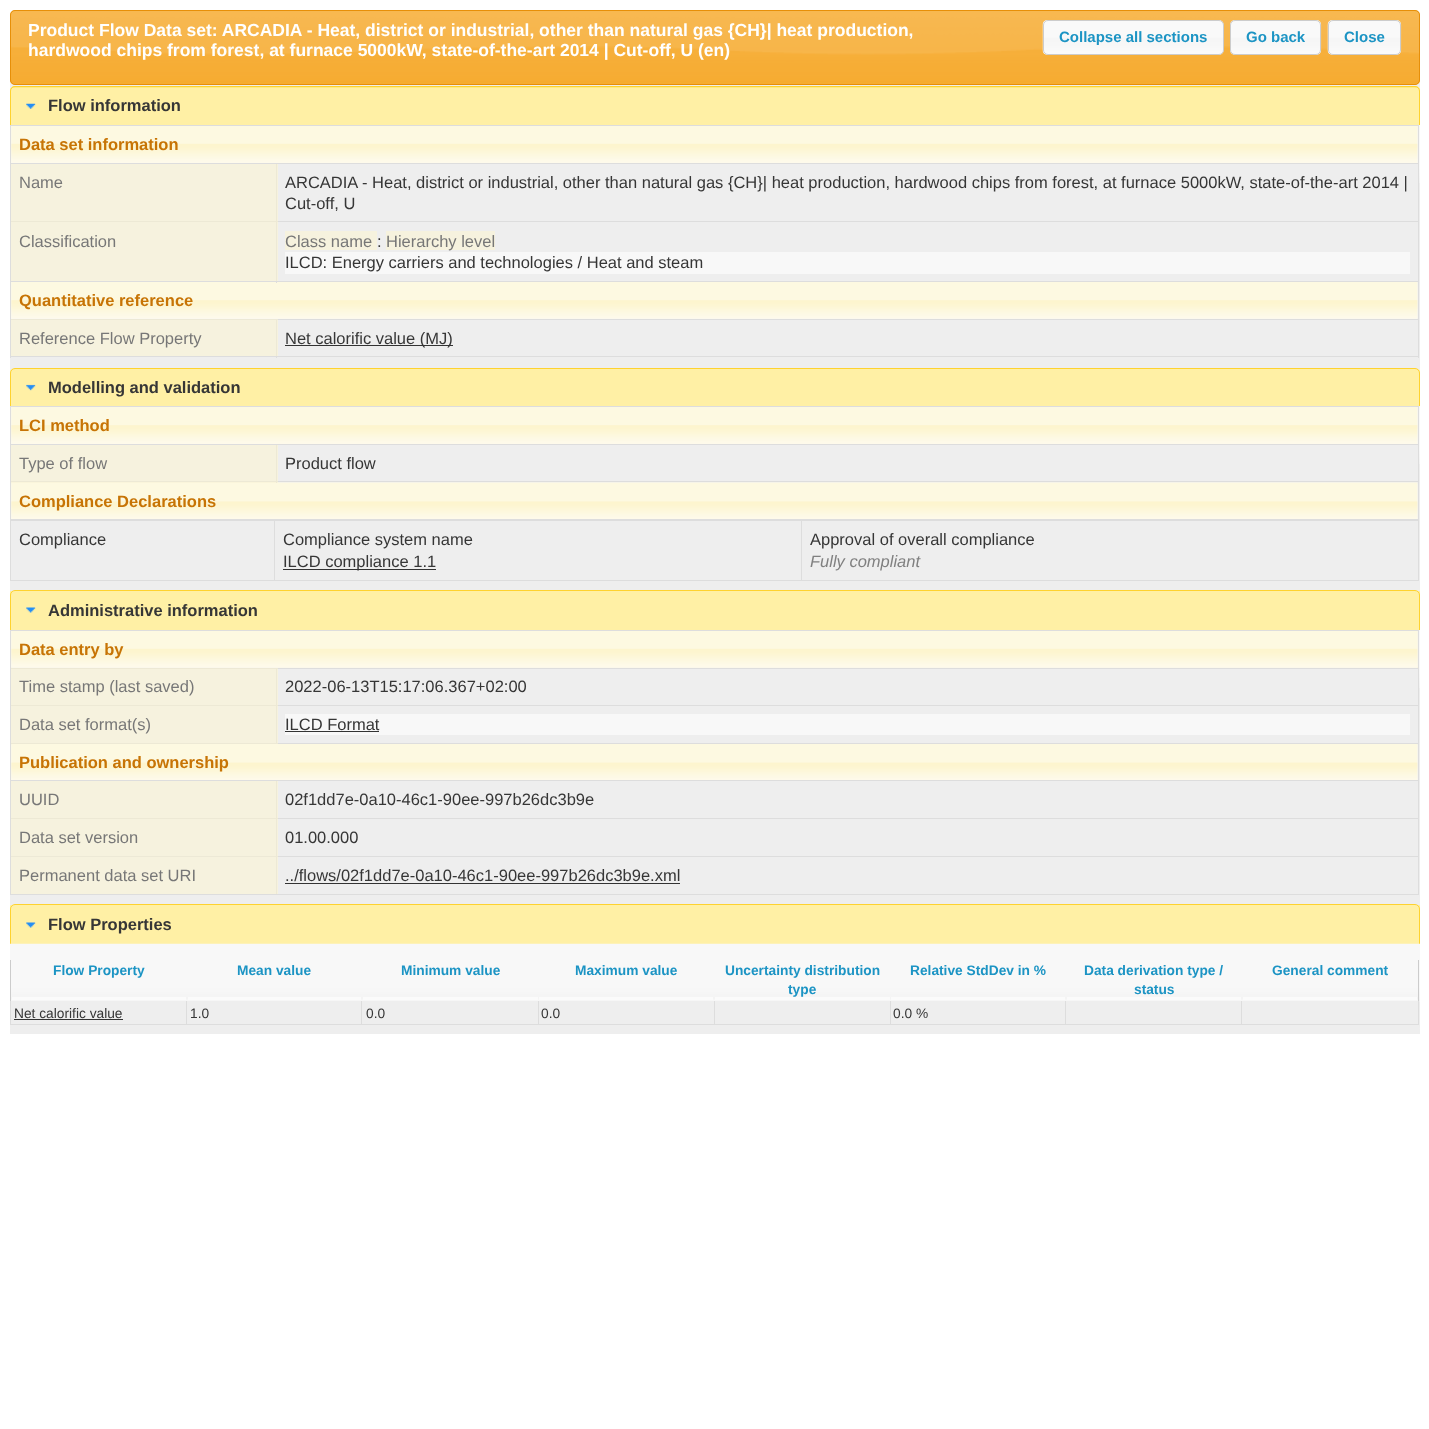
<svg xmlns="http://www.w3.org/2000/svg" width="1429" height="1429">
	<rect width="100%" height="100%" fill="#FFFFFF" />
	<rect x="10" y="10" width="1410" height="1023" rx="5" fill="#EEEEEE" />
	<image x="10" y="10" width="1410" height="5" href="assets/img1.png" />
	<image x="10" y="10" width="1410" height="75" href="assets/img2.png" />
	<rect x="10.5" y="10.5" width="1409" height="74" rx="4.5" fill="none" stroke="#E78F08" />
	<g font-family="Liberation Sans" font-size="17.5" font-weight="700" fill="#FFFFFF">
		<text x="28" y="36">Product Flow Data set: ARCADIA - Heat, district or industrial, other than natural gas {CH}| heat production,</text>
		<text x="28" y="56">hardwood chips from forest, at furnace 5000kW, state-of-the-art 2014 | Cut-off, U (en)</text>
	</g>
	<image x="1042" y="20" width="182" height="35" href="assets/img3.png" />
	<rect x="1043.5" y="20.5" width="180" height="34" rx="4.5" fill="none" stroke="#CCCCCC" />
	<text x="1059" y="42" font-family="Liberation Sans" font-size="15" font-weight="700" fill="#1C94C4">Collapse all sections</text>
	<image x="1230" y="20" width="92" height="35" href="assets/img4.png" />
	<rect x="1230.5" y="20.5" width="90" height="34" rx="4.5" fill="none" stroke="#CCCCCC" />
	<text x="1246" y="42" font-family="Liberation Sans" font-size="15" font-weight="700" fill="#1C94C4">Go back</text>
	<image x="1327" y="20" width="75" height="35" href="assets/img5.png" />
	<rect x="1328.5" y="20.5" width="72" height="34" rx="4.5" fill="none" stroke="#CCCCCC" />
	<text x="1344" y="42" font-family="Liberation Sans" font-size="15" font-weight="700" fill="#1C94C4">Close</text>
	<path d="M15 86H1415C1418 86 1420 88 1420 91V126H10V91C10 88 12 86 15 86Z" fill="#FFE45C" />
	<image x="10" y="87" width="1410" height="38" href="assets/img6.png" />
	<path d="M15 86.5H1415C1417.5 86.5 1419.5 88.5 1419.5 91V125.5H10.5V91C10.5 88.5 12.5 86.5 15 86.5Z" fill="none" stroke="#FED22F" />
	<image x="26" y="103" width="10" height="6" href="assets/img7.png" />
	<text x="48" y="111" font-family="Liberation Sans" font-size="16.5" font-weight="700" fill="#363636">Flow information</text>
	<rect x="11" y="320" width="267" height="36" fill="#F6F2DE" />
	<rect x="11" y="223" width="267" height="58" fill="#F6F2DE" />
	<image x="11" y="125" width="1409" height="58" href="assets/img8.png" />
	<rect x="10" y="125" width="1409" height="1" fill="#DDDDDD" />
	<rect x="10" y="163" width="1409" height="1" fill="#DDDDDD" />
	<rect x="10" y="221" width="1409" height="1" fill="#DDDDDD" />
	<rect x="10" y="281" width="1409" height="1" fill="#DDDDDD" />
	<rect x="278" y="319" width="1141" height="1" fill="#DDDDDD" />
	<rect x="1418" y="319" width="1" height="39" fill="#DDDDDD" />
	<rect x="1418" y="281" width="1" height="39" fill="#DDDDDD" />
	<rect x="1418" y="221" width="1" height="62" fill="#DDDDDD" />
	<rect x="1418" y="163" width="1" height="60" fill="#DDDDDD" />
	<rect x="1418" y="125" width="1" height="39" fill="#DDDDDD" />
	<rect x="10" y="356" width="1409" height="1" fill="#DDDDDD" />
	<rect x="10" y="319" width="1" height="39" fill="#DDDDDD" />
	<rect x="10" y="281" width="1" height="39" fill="#DDDDDD" />
	<rect x="10" y="221" width="1" height="62" fill="#DDDDDD" />
	<rect x="10" y="163" width="1" height="60" fill="#DDDDDD" />
	<rect x="10" y="125" width="1" height="39" fill="#DDDDDD" />
	<image x="11" y="126" width="1407" height="37" href="assets/img9.png" />
	<text x="19" y="150" font-family="Liberation Sans" font-size="16.5" font-weight="700" fill="#C77405">Data set information</text>
	<rect x="11" y="164" width="1407" height="19" fill="#EEEEEE" />
	<rect x="276" y="163" width="1" height="60" fill="#DDDDDD" />
	<rect x="11" y="164" width="267" height="59" fill="#FDF5CE" fill-opacity="0.5" />
	<text x="19" y="188" font-family="Liberation Sans" font-size="16.5" fill="#777777">Name</text>
	<g font-family="Liberation Sans" font-size="16.5" fill="#363636">
		<text x="285" y="188">ARCADIA - Heat, district or industrial, other than natural gas {CH}| heat production, hardwood chips from forest, at furnace 5000kW, state-of-the-art 2014 |</text>
		<text x="285" y="209">Cut-off, U</text>
	</g>
	<text x="19" y="247" font-family="Liberation Sans" font-size="16.5" fill="#777777">Classification</text>
	<image x="11" y="282" width="1407" height="37" href="assets/img10.png" />
	<rect x="276" y="281" width="1" height="2" fill="#DDDDDD" />
	<rect x="276" y="223" width="1" height="58" fill="#EDE9D6" />
	<rect x="285" y="231" width="92" height="19" fill="#F6F2DE" />
	<text x="285" y="247" font-family="Liberation Sans" font-size="16.5" fill="#777777">Class name</text>
	<text x="377" y="247" font-family="Liberation Sans" font-size="16.5" fill="#363636">:</text>
	<rect x="386" y="231" width="109" height="19" fill="#F6F2DE" />
	<text x="386" y="247" font-family="Liberation Sans" font-size="16.5" fill="#777777">Hierarchy level</text>
	<rect x="285" y="252" width="1125" height="22" fill="#F8F8F8" />
	<text x="285" y="268" font-family="Liberation Sans" font-size="16.5" fill="#363636">ILCD: Energy carriers and technologies / Heat and steam</text>
	<text x="19" y="306" font-family="Liberation Sans" font-size="16.5" font-weight="700" fill="#C77405">Quantitative reference</text>
	<rect x="11" y="319" width="267" height="1" fill="#EDE9D6" />
	<text x="19" y="344" font-family="Liberation Sans" font-size="16.5" fill="#777777">Reference Flow Property</text>
	<rect x="276" y="356" width="1" height="2" fill="#DDDDDD" />
	<rect x="276" y="319" width="1" height="37" fill="#EDE9D6" />
	<rect x="285" y="345" width="168" height="1" fill="#333333" />
	<text x="285" y="344" font-family="Liberation Sans" font-size="16.5" fill="#363636">Net calorific value (MJ)</text>
	<image x="10" y="368" width="1410" height="38" href="assets/img11.png" />
	<path d="M15 368.5H1415C1417.5 368.5 1419.5 370.5 1419.5 373V407.5H10.5V373C10.5 370.5 12.5 368.5 15 368.5Z" fill="none" stroke="#FED22F" />
	<image x="26" y="384" width="10" height="7" href="assets/img12.png" />
	<text x="48" y="393" font-family="Liberation Sans" font-size="16.5" font-weight="700" fill="#363636">Modelling and validation</text>
	<rect x="10" y="406" width="1410" height="2" fill="#EEEEEE" />
	<image x="11" y="406" width="1409" height="58" href="assets/img13.png" />
	<rect x="10" y="406" width="1409" height="1" fill="#DDDDDD" />
	<rect x="10" y="444" width="1409" height="1" fill="#DDDDDD" />
	<rect x="10" y="481" width="1409" height="1" fill="#DDDDDD" />
	<rect x="1418" y="481" width="1" height="39" fill="#DDDDDD" />
	<rect x="1418" y="444" width="1" height="39" fill="#DDDDDD" />
	<rect x="1418" y="406" width="1" height="39" fill="#DDDDDD" />
	<rect x="10" y="519" width="1409" height="2" fill="#DDDDDD" />
	<rect x="10" y="481" width="1" height="39" fill="#DDDDDD" />
	<rect x="10" y="444" width="1" height="39" fill="#DDDDDD" />
	<rect x="10" y="406" width="1" height="39" fill="#DDDDDD" />
	<image x="11" y="407" width="1407" height="37" href="assets/img14.png" />
	<text x="19" y="431" font-family="Liberation Sans" font-size="16.5" font-weight="700" fill="#C77405">LCI method</text>
	<rect x="11" y="445" width="1407" height="19" fill="#EEEEEE" />
	<image x="11" y="482" width="1407" height="37" href="assets/img15.png" />
	<rect x="276" y="444" width="1" height="39" fill="#DDDDDD" />
	<rect x="11" y="445" width="267" height="38" fill="#FDF5CE" fill-opacity="0.5" />
	<text x="19" y="469" font-family="Liberation Sans" font-size="16.5" fill="#777777">Type of flow</text>
	<text x="285" y="469" font-family="Liberation Sans" font-size="16.5" fill="#363636">Product flow</text>
	<text x="19" y="507" font-family="Liberation Sans" font-size="16.5" font-weight="700" fill="#C77405">Compliance Declarations</text>
	<rect x="1418" y="520" width="1" height="61" fill="#DDDDDD" />
	<rect x="10" y="580" width="1409" height="1" fill="#DDDDDD" />
	<rect x="10" y="520" width="1" height="61" fill="#DDDDDD" />
	<text x="19" y="545" font-family="Liberation Sans" font-size="16.5" fill="#363636">Compliance</text>
	<rect x="274" y="520" width="1" height="61" fill="#DDDDDD" />
	<text x="283" y="545" font-family="Liberation Sans" font-size="16.5" fill="#363636">Compliance system name</text>
	<rect x="283" y="569" width="153" height="1" fill="#333333" />
	<text x="283" y="567" font-family="Liberation Sans" font-size="16.5" fill="#363636">ILCD compliance 1.1</text>
	<rect x="801" y="520" width="1" height="61" fill="#DDDDDD" />
	<text x="810" y="545" font-family="Liberation Sans" font-size="16.5" fill="#363636">Approval of overall compliance</text>
	<text x="810" y="567" font-family="Liberation Sans" font-size="16.5" font-style="italic" fill="#808080">Fully compliant</text>
	<rect x="10" y="591" width="1410" height="39" fill="#FFF0A5" />
	<path d="M15 590.5H1415C1417.5 590.5 1419.5 592.5 1419.5 595V630.5H10.5V595C10.5 592.5 12.5 590.5 15 590.5Z" fill="none" stroke="#FED22F" />
	<image x="26" y="607" width="10" height="6" href="assets/img16.png" />
	<text x="48" y="616" font-family="Liberation Sans" font-size="16.5" font-weight="700" fill="#363636">Administrative information</text>
	<rect x="11" y="857" width="267" height="37" fill="#F6F2DE" />
	<rect x="11" y="819" width="267" height="37" fill="#F6F2DE" />
	<image x="1419" y="630" width="1" height="58" href="assets/img17.png" />
	<rect x="10" y="630" width="1409" height="1" fill="#DDDDDD" />
	<rect x="10" y="668" width="1409" height="1" fill="#DDDDDD" />
	<rect x="10" y="705" width="1409" height="1" fill="#DDDDDD" />
	<rect x="10" y="743" width="1409" height="1" fill="#DDDDDD" />
	<rect x="10" y="780" width="1409" height="1" fill="#DDDDDD" />
	<rect x="10" y="818" width="1409" height="1" fill="#DDDDDD" />
	<rect x="278" y="856" width="1141" height="1" fill="#DDDDDD" />
	<rect x="1418" y="856" width="1" height="39" fill="#DDDDDD" />
	<rect x="1418" y="818" width="1" height="40" fill="#DDDDDD" />
	<rect x="1418" y="780" width="1" height="39" fill="#DDDDDD" />
	<rect x="1418" y="743" width="1" height="38" fill="#DDDDDD" />
	<rect x="1418" y="705" width="1" height="39" fill="#DDDDDD" />
	<rect x="1418" y="668" width="1" height="38" fill="#DDDDDD" />
	<rect x="1418" y="630" width="1" height="39" fill="#DDDDDD" />
	<rect x="10" y="894" width="1409" height="1" fill="#DDDDDD" />
	<rect x="10" y="856" width="1" height="39" fill="#DDDDDD" />
	<rect x="10" y="818" width="1" height="40" fill="#DDDDDD" />
	<rect x="10" y="780" width="1" height="39" fill="#DDDDDD" />
	<rect x="10" y="743" width="1" height="38" fill="#DDDDDD" />
	<rect x="10" y="705" width="1" height="39" fill="#DDDDDD" />
	<rect x="10" y="668" width="1" height="38" fill="#DDDDDD" />
	<rect x="10" y="630" width="1" height="39" fill="#DDDDDD" />
	<rect x="11" y="631" width="1407" height="37" fill="#FDF5CE" />
	<image x="11" y="631" width="1407" height="37" href="assets/img18.png" />
	<text x="19" y="655" font-family="Liberation Sans" font-size="16.5" font-weight="700" fill="#C77405">Data entry by</text>
	<rect x="276" y="668" width="1" height="76" fill="#DDDDDD" />
	<rect x="11" y="668" width="267" height="37" fill="#FDF5CE" fill-opacity="0.5" />
	<text x="19" y="692" font-family="Liberation Sans" font-size="16.5" fill="#777777">Time stamp (last saved)</text>
	<text x="285" y="692" font-family="Liberation Sans" font-size="16.5" fill="#363636">2022-06-13T15:17:06.367+02:00</text>
	<rect x="11" y="705" width="267" height="39" fill="#FDF5CE" fill-opacity="0.5" />
	<text x="19" y="730" font-family="Liberation Sans" font-size="16.5" fill="#777777">Data set format(s)</text>
	<rect x="285" y="714" width="1125" height="21" fill="#F8F8F8" />
	<text x="285" y="730" font-family="Liberation Sans" font-size="16.5" fill="#363636">ILCD Format</text>
	<rect x="285" y="731" width="94" height="1" fill="#333333" />
	<image x="11" y="744" width="1407" height="36" href="assets/img19.png" />
	<text x="19" y="768" font-family="Liberation Sans" font-size="16.5" font-weight="700" fill="#C77405">Publication and ownership</text>
	<rect x="276" y="780" width="1" height="39" fill="#DDDDDD" />
	<rect x="11" y="781" width="267" height="38" fill="#FDF5CE" fill-opacity="0.5" />
	<text x="19" y="805" font-family="Liberation Sans" font-size="16.5" fill="#777777">UUID</text>
	<text x="285" y="805" font-family="Liberation Sans" font-size="16.5" fill="#363636">02f1dd7e-0a10-46c1-90ee-997b26dc3b9e</text>
	<text x="19" y="843" font-family="Liberation Sans" font-size="16.5" fill="#777777">Data set version</text>
	<text x="285" y="843" font-family="Liberation Sans" font-size="16.5" fill="#363636">01.00.000</text>
	<rect x="11" y="856" width="267" height="1" fill="#EDE9D6" />
	<text x="19" y="881" font-family="Liberation Sans" font-size="16.5" fill="#777777">Permanent data set URI</text>
	<rect x="276" y="819" width="1" height="75" fill="#EDE9D6" />
	<text x="285" y="881" font-family="Liberation Sans" font-size="16.5" fill="#363636">../flows/02f1dd7e-0a10-46c1-90ee-997b26dc3b9e.xml</text>
	<rect x="285" y="883" width="395" height="1" fill="#333333" />
	<rect x="10" y="905" width="1410" height="39" fill="#FFF0A5" />
	<path d="M15 904.5H1415C1417.5 904.5 1419.5 906.5 1419.5 909V944.5H10.5V909C10.5 906.5 12.5 904.5 15 904.5Z" fill="none" stroke="#FED22F" />
	<image x="26" y="922" width="10" height="6" href="assets/img16.png" />
	<text x="48" y="930" font-family="Liberation Sans" font-size="16.5" font-weight="700" fill="#363636">Flow Properties</text>
	<rect x="10" y="1029" width="1410" height="5" fill="#EEEEEE" />
	<image x="10" y="943" width="1410" height="59" href="assets/img20.png" />
	<rect x="1418" y="1000" width="1" height="25" fill="#DDDDDD" />
	<rect x="10" y="1024" width="1409" height="1" fill="#DDDDDD" />
	<rect x="10" y="1000" width="1" height="25" fill="#DDDDDD" />
	<rect x="10" y="960" width="1" height="41" fill="#CCCCCC" />
	<rect x="11" y="1001" width="1407" height="1" fill="#EEEEEE" />
	<rect x="186" y="1000" width="1" height="25" fill="#DDDDDD" />
	<rect x="361" y="1000" width="1" height="25" fill="#DDDDDD" />
	<rect x="538" y="1000" width="1" height="25" fill="#DDDDDD" />
	<rect x="714" y="1000" width="1" height="25" fill="#DDDDDD" />
	<rect x="890" y="1000" width="1" height="25" fill="#DDDDDD" />
	<rect x="1065" y="1000" width="1" height="25" fill="#DDDDDD" />
	<rect x="1241" y="1000" width="1" height="25" fill="#DDDDDD" />
	<rect x="11" y="999" width="1407" height="2" fill="#F6F6F6" />
	<rect x="12" y="997" width="174" height="3" fill="#FBFBFB" />
	<text x="53" y="975" font-family="Liberation Sans" font-size="13.75" font-weight="700" fill="#1C94C4">Flow Property</text>
	<rect x="188" y="997" width="173" height="3" fill="#FBFBFB" />
	<text x="237" y="975" font-family="Liberation Sans" font-size="13.75" font-weight="700" fill="#1C94C4">Mean value</text>
	<rect x="363" y="997" width="175" height="3" fill="#FBFBFB" />
	<text x="401" y="975" font-family="Liberation Sans" font-size="13.75" font-weight="700" fill="#1C94C4">Minimum value</text>
	<rect x="539" y="997" width="174" height="3" fill="#FBFBFB" />
	<text x="575" y="975" font-family="Liberation Sans" font-size="13.75" font-weight="700" fill="#1C94C4">Maximum value</text>
	<rect x="715" y="997" width="175" height="3" fill="#FBFBFB" />
	<g font-family="Liberation Sans" font-size="13.75" font-weight="700" fill="#1C94C4">
		<text x="725" y="975">Uncertainty distribution</text>
		<text x="788" y="994">type</text>
	</g>
	<rect x="891" y="997" width="174" height="3" fill="#FBFBFB" />
	<text x="910" y="975" font-family="Liberation Sans" font-size="13.75" font-weight="700" fill="#1C94C4">Relative StdDev in %</text>
	<rect x="1067" y="997" width="174" height="3" fill="#FBFBFB" />
	<g font-family="Liberation Sans" font-size="13.75" font-weight="700" fill="#1C94C4">
		<text x="1084" y="975">Data derivation type /</text>
		<text x="1134" y="994">status</text>
	</g>
	<rect x="1418" y="960" width="1" height="41" fill="#CCCCCC" />
	<rect x="1243" y="997" width="174" height="3" fill="#FBFBFB" />
	<text x="1272" y="975" font-family="Liberation Sans" font-size="13.75" font-weight="700" fill="#1C94C4">General comment</text>
	<text x="14" y="1018" font-family="Liberation Sans" font-size="13.75" fill="#363636">Net calorific value</text>
	<rect x="14" y="1019" width="109" height="1" fill="#333333" />
	<g font-family="Liberation Sans" font-size="13.75" fill="#363636">
		<text x="190" y="1018">1.0</text>
		<text x="366" y="1018">0.0</text>
		<text x="541" y="1018">0.0</text>
		<text x="893" y="1018">0.0 %</text>
	</g>
</svg>
